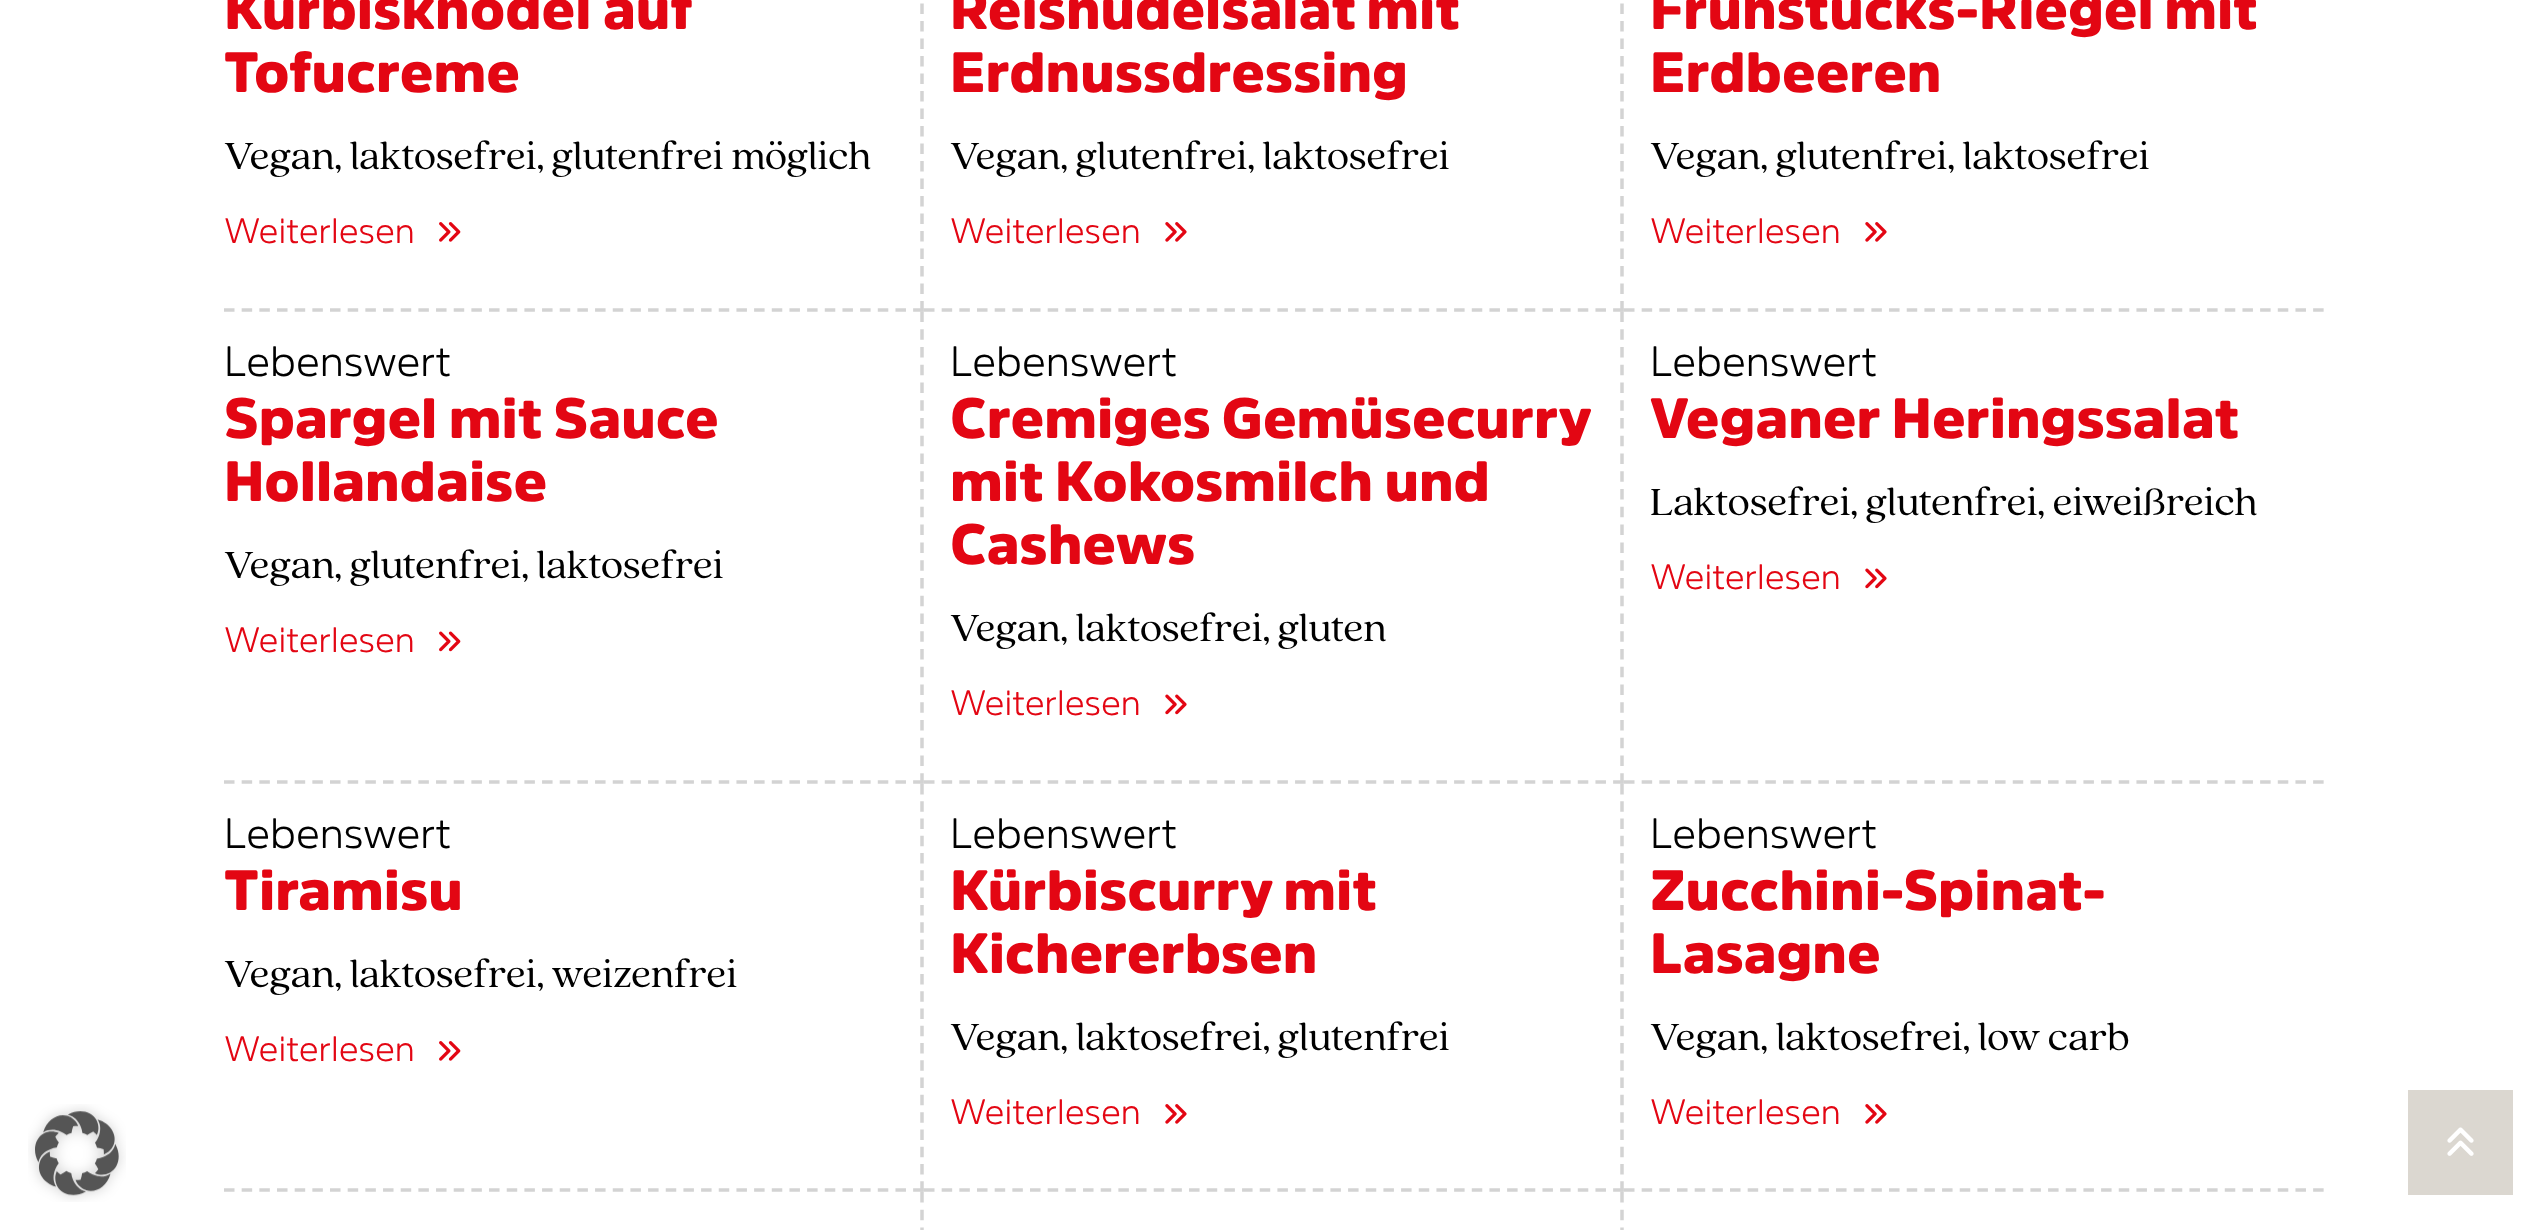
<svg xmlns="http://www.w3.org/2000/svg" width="2548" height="1230">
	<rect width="100%" height="100%" fill="#FFFFFF" />
	<path d="M922-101.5V311.5" fill="none" stroke="#D3D3D3" stroke-width="3.5" stroke-dasharray="10.5 7" />
	<path d="M224 310H924" fill="none" stroke="#D3D3D3" stroke-width="3.5" stroke-dasharray="10.5 7.17" />
	<g font-family="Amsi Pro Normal" font-size="56" font-weight="900" fill="#E30613">
		<text x="224" y="29">Kürbisknödel auf</text>
		<text x="224" y="92">Tofucreme</text>
	</g>
	<text x="224" y="169" font-family="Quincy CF" font-size="42" fill="#000000">Vegan, laktosefrei, glutenfrei möglich</text>
	<text x="224" y="243" font-family="Amsi Pro Normal" font-size="35" font-weight="300" fill="#E30613">Weiterlesen</text>
	<image x="439" y="222" width="22" height="20" href="assets/img1.png" />
	<path d="M1622-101.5V311.5" fill="none" stroke="#D3D3D3" stroke-width="3.5" stroke-dasharray="10.5 7" />
	<path d="M924 310H1624" fill="none" stroke="#D3D3D3" stroke-width="3.5" stroke-dasharray="10.5 7.17" />
	<g font-family="Amsi Pro Normal" font-size="56" font-weight="900" fill="#E30613">
		<text x="950" y="29" word-spacing="-1">Reisnudelsalat mit</text>
		<text x="950" y="92">Erdnussdressing</text>
	</g>
	<text x="950" y="169" font-family="Quincy CF" font-size="42" fill="#000000">Vegan, glutenfrei, laktosefrei</text>
	<text x="950" y="243" font-family="Amsi Pro Normal" font-size="35" font-weight="300" fill="#E30613">Weiterlesen</text>
	<image x="1165" y="222" width="22" height="20" href="assets/img2.png" />
	<path d="M1624 310H2324" fill="none" stroke="#D3D3D3" stroke-width="3.5" stroke-dasharray="10.5 7.17" />
	<g font-family="Amsi Pro Normal" font-size="56" font-weight="900" fill="#E30613">
		<text x="1650" y="29" word-spacing="-1">Frühstücks-Riegel mit</text>
		<text x="1650" y="92">Erdbeeren</text>
	</g>
	<text x="1650" y="169" font-family="Quincy CF" font-size="42" fill="#000000">Vegan, glutenfrei, laktosefrei</text>
	<text x="1650" y="243" font-family="Amsi Pro Normal" font-size="35" font-weight="300" fill="#E30613">Weiterlesen</text>
	<image x="1865" y="222" width="22" height="20" href="assets/img2.png" />
	<path d="M922 311.5V784" fill="none" stroke="#D3D3D3" stroke-width="3.5" stroke-dasharray="10.5 7.26" />
	<path d="M224 782H924" fill="none" stroke="#D3D3D3" stroke-width="3.5" stroke-dasharray="10.5 7.17" />
	<text x="224" y="376" font-family="Amsi Pro Normal" font-size="42" font-weight="300" fill="#000000">Lebenswert</text>
	<g font-family="Amsi Pro Normal" font-size="56" font-weight="900" fill="#E30613">
		<text x="224" y="438">Spargel mit Sauce</text>
		<text x="224" y="501">Hollandaise</text>
	</g>
	<text x="224" y="578" font-family="Quincy CF" font-size="42" fill="#000000">Vegan, glutenfrei, laktosefrei</text>
	<text x="224" y="652" font-family="Amsi Pro Normal" font-size="35" font-weight="300" fill="#E30613">Weiterlesen</text>
	<image x="439" y="631" width="22" height="21" href="assets/img3.png" />
	<path d="M1622 311.5V784" fill="none" stroke="#D3D3D3" stroke-width="3.5" stroke-dasharray="10.5 7.26" />
	<path d="M924 782H1624" fill="none" stroke="#D3D3D3" stroke-width="3.5" stroke-dasharray="10.5 7.17" />
	<text x="950" y="376" font-family="Amsi Pro Normal" font-size="42" font-weight="300" fill="#000000">Lebenswert</text>
	<g font-family="Amsi Pro Normal" font-size="56" font-weight="900" fill="#E30613">
		<text x="950" y="438" word-spacing="-1">Cremiges Gemüsecurry</text>
		<text x="950" y="501">mit Kokosmilch und</text>
		<text x="950" y="564">Cashews</text>
	</g>
	<text x="950" y="641" font-family="Quincy CF" font-size="42" fill="#000000">Vegan, laktosefrei, gluten</text>
	<text x="950" y="715" font-family="Amsi Pro Normal" font-size="35" font-weight="300" fill="#E30613">Weiterlesen</text>
	<image x="1165" y="694" width="22" height="21" href="assets/img4.png" />
	<path d="M1624 782H2324" fill="none" stroke="#D3D3D3" stroke-width="3.5" stroke-dasharray="10.5 7.17" />
	<text x="1650" y="376" font-family="Amsi Pro Normal" font-size="42" font-weight="300" fill="#000000">Lebenswert</text>
	<text x="1650" y="438" font-family="Amsi Pro Normal" font-size="56" font-weight="900" fill="#E30613">Veganer Heringssalat</text>
	<text x="1650" y="515" font-family="Quincy CF" font-size="42" fill="#000000">Laktosefrei, glutenfrei, eiweißreich</text>
	<text x="1650" y="589" font-family="Amsi Pro Normal" font-size="35" font-weight="300" fill="#E30613">Weiterlesen</text>
	<image x="1865" y="568" width="22" height="21" href="assets/img4.png" />
	<path d="M922 784V1192" fill="none" stroke="#D3D3D3" stroke-width="3.5" stroke-dasharray="10.5 6.77" />
	<path d="M224 1190H924" fill="none" stroke="#D3D3D3" stroke-width="3.5" stroke-dasharray="10.5 7.17" />
	<text x="224" y="848" font-family="Amsi Pro Normal" font-size="42" font-weight="300" fill="#000000">Lebenswert</text>
	<text x="224" y="910" font-family="Amsi Pro Normal" font-size="56" font-weight="900" fill="#E30613">Tiramisu</text>
	<text x="224" y="987" font-family="Quincy CF" font-size="42" fill="#000000">Vegan, laktosefrei, weizenfrei</text>
	<text x="224" y="1061" font-family="Amsi Pro Normal" font-size="35" font-weight="300" fill="#E30613">Weiterlesen</text>
	<image x="439" y="1041" width="22" height="20" href="assets/img1.png" />
	<path d="M1622 784V1192" fill="none" stroke="#D3D3D3" stroke-width="3.5" stroke-dasharray="10.5 6.77" />
	<path d="M924 1190H1624" fill="none" stroke="#D3D3D3" stroke-width="3.5" stroke-dasharray="10.5 7.17" />
	<text x="950" y="848" font-family="Amsi Pro Normal" font-size="42" font-weight="300" fill="#000000">Lebenswert</text>
	<g font-family="Amsi Pro Normal" font-size="56" font-weight="900" fill="#E30613">
		<text x="950" y="910" word-spacing="-1">Kürbiscurry mit</text>
		<text x="950" y="973">Kichererbsen</text>
	</g>
	<text x="950" y="1050" font-family="Quincy CF" font-size="42" fill="#000000">Vegan, laktosefrei, glutenfrei</text>
	<text x="950" y="1124" font-family="Amsi Pro Normal" font-size="35" font-weight="300" fill="#E30613">Weiterlesen</text>
	<image x="1165" y="1104" width="22" height="20" href="assets/img2.png" />
	<path d="M1624 1190H2324" fill="none" stroke="#D3D3D3" stroke-width="3.5" stroke-dasharray="10.5 7.17" />
	<text x="1650" y="848" font-family="Amsi Pro Normal" font-size="42" font-weight="300" fill="#000000">Lebenswert</text>
	<g font-family="Amsi Pro Normal" font-size="56" font-weight="900" fill="#E30613">
		<text x="1650" y="910">Zucchini-Spinat-</text>
		<text x="1650" y="973">Lasagne</text>
	</g>
	<text x="1650" y="1050" font-family="Quincy CF" font-size="42" fill="#000000">Vegan, laktosefrei, low carb</text>
	<text x="1650" y="1124" font-family="Amsi Pro Normal" font-size="35" font-weight="300" fill="#E30613">Weiterlesen</text>
	<image x="1865" y="1104" width="22" height="20" href="assets/img2.png" />
	<path d="M922 1192V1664" fill="none" stroke="#D3D3D3" stroke-width="3.5" stroke-dasharray="10.5 7.26" />
	<path d="M1622 1192V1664" fill="none" stroke="#D3D3D3" stroke-width="3.5" stroke-dasharray="10.5 7.26" />
	<rect x="2408" y="1090" width="105" height="105" fill="#DBD7D0" />
	<image x="2447" y="1127" width="27" height="29" href="assets/img5.png" />
	<image x="28" y="1104" width="98" height="98" href="assets/img6.png" />
</svg>
